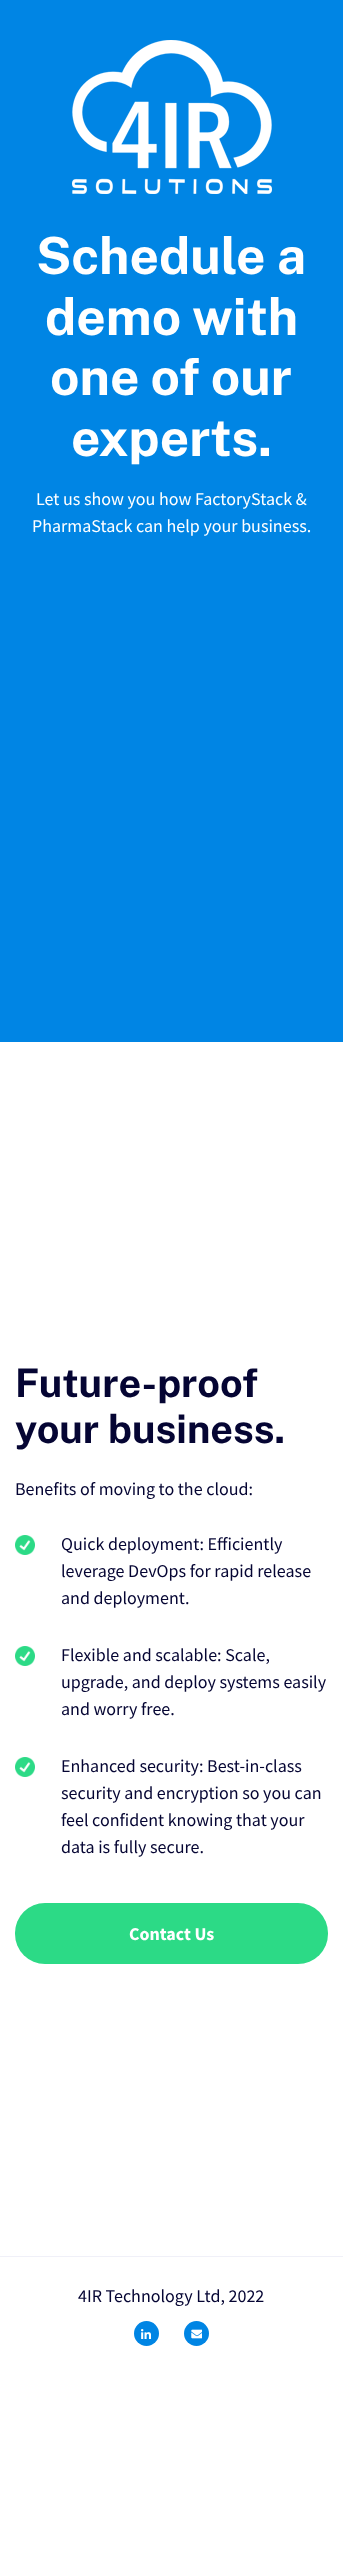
<svg xmlns="http://www.w3.org/2000/svg" width="343" height="2563">
	<rect width="100%" height="100%" fill="#FFFFFF" />
	<rect x="0" y="0" width="343" height="1042" fill="#0085E4" />
	<image x="72" y="40" width="200" height="154" href="assets/img1.png" />
	<g font-family="Public Sans" font-size="51.25" font-weight="700" fill="#FFFFFF">
		<text x="36" y="274">Schedule a</text>
		<text x="45" y="335">demo with</text>
		<text x="50" y="395">one of our</text>
		<text x="71" y="456">experts.</text>
	</g>
	<g font-family="Source Sans Pro" font-size="18" fill="#FFFFFF">
		<text x="36" y="505">Let us show you how FactoryStack &amp;</text>
		<text x="32" y="532">PharmaStack can help your business.</text>
	</g>
	<g font-family="Public Sans" font-size="39.5" font-weight="700" fill="#050533">
		<text x="15" y="1397">Future-proof</text>
		<text x="15" y="1443">your business.</text>
	</g>
	<text x="15" y="1495" font-family="Source Sans Pro" font-size="18" fill="#050533">Benefits of moving to the cloud:</text>
	<image x="15" y="1535" width="20" height="20" href="assets/img2.png" />
	<g font-family="Source Sans Pro" font-size="18" fill="#050533">
		<text x="61" y="1550">Quick deployment: Efficiently</text>
		<text x="61" y="1577">leverage DevOps for rapid release</text>
		<text x="61" y="1604">and deployment.</text>
	</g>
	<image x="15" y="1646" width="20" height="20" href="assets/img2.png" />
	<g font-family="Source Sans Pro" font-size="18" fill="#050533">
		<text x="61" y="1661">Flexible and scalable: Scale,</text>
		<text x="61" y="1688">upgrade, and deploy systems easily</text>
		<text x="61" y="1715">and worry free.</text>
	</g>
	<image x="15" y="1757" width="20" height="20" href="assets/img2.png" />
	<g font-family="Source Sans Pro" font-size="18" fill="#050533">
		<text x="61" y="1772">Enhanced security: Best-in-class</text>
		<text x="61" y="1799">security and encryption so you can</text>
		<text x="61" y="1826">feel confident knowing that your</text>
		<text x="61" y="1853">data is fully secure.</text>
	</g>
	<rect x="15" y="1903" width="313" height="61" rx="30" fill="#2CDA86" />
	<text x="129" y="1940" font-family="Source Sans Pro" font-size="18" font-weight="700" fill="#FFFFFF">Contact Us</text>
	<rect x="0" y="2256" width="343" height="1" fill="#F0F0F8" />
	<text x="78" y="2302" font-family="Source Sans Pro" font-size="18" fill="#050533">4IR Technology Ltd, 2022</text>
	<circle cx="146.5" cy="2333.5" r="12.5" fill="#0085E4" />
	<image x="141" y="2329" width="10" height="10" href="assets/img3.png" />
	<circle cx="196.5" cy="2333.5" r="12.5" fill="#0085E4" />
	<image x="191" y="2329" width="11" height="10" href="assets/img4.png" />
</svg>
